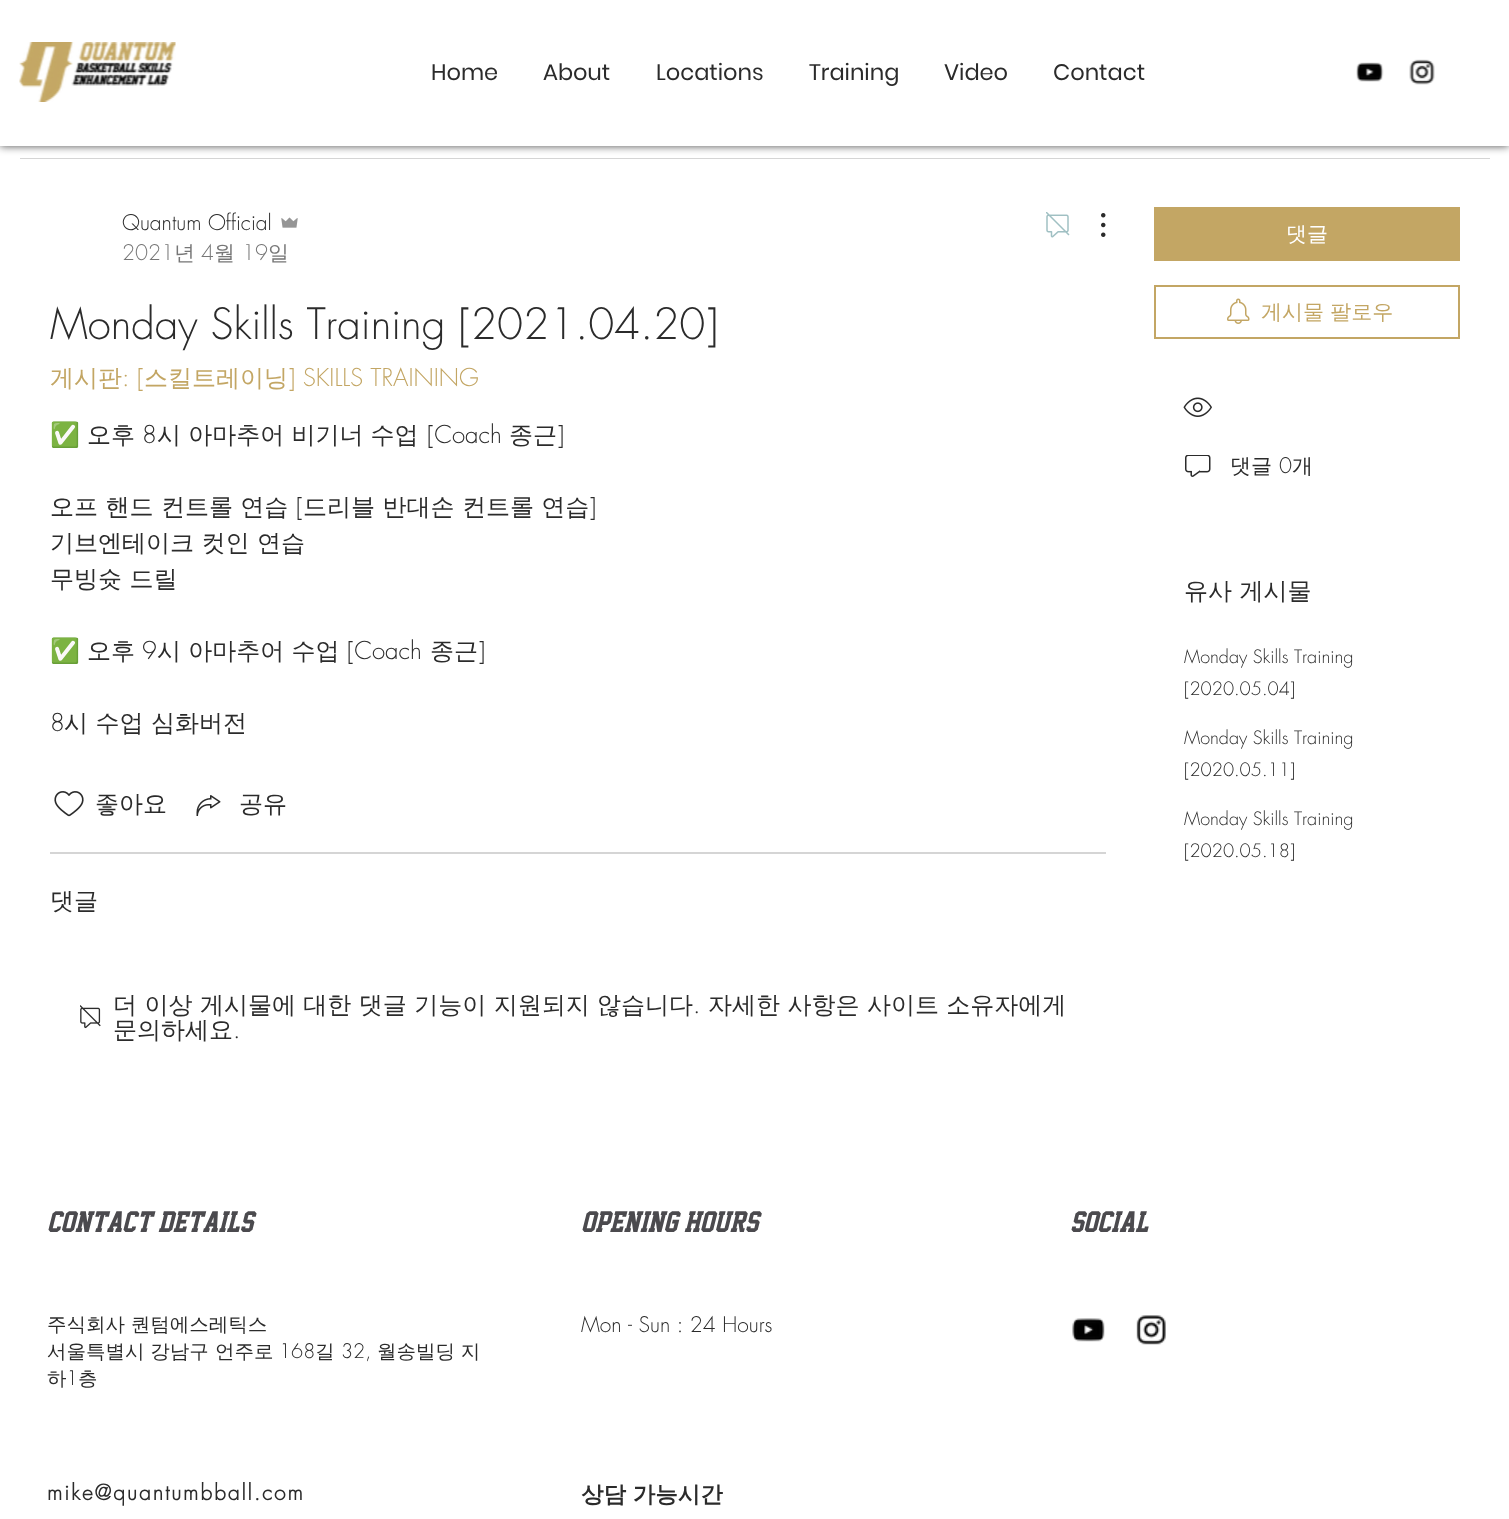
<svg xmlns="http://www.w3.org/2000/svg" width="1509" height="1519">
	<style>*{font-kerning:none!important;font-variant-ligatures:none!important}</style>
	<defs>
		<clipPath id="clip1"><rect x="50" y="417" width="1056" height="324" /></clipPath>
	</defs>
	<rect width="100%" height="100%" fill="#FFFFFF" />
	<rect x="20" y="158" width="1470" height="1" fill="#D5D5D5" />
	<rect x="0" y="0" width="1509" height="146" fill="#000000" fill-opacity="0.7" filter="blur(4px)" />
	<rect x="0" y="0" width="1509" height="146" fill="#FFFFFF" />
	<image x="19" y="42" width="157" height="60" href="assets/img1.png" />
	<g font-family="Poppins" font-size="22.5" fill="#2B2B2B">
		<text x="431" y="80">Home</text>
		<text x="543" y="80">About</text>
		<text x="656" y="80">Locations</text>
		<text x="809" y="80">Training</text>
		<text x="944" y="80">Video</text>
		<text x="1053" y="80">Contact</text>
	</g>
	<image x="1356" y="62" width="28" height="20" href="assets/img2.png" />
	<image x="1409" y="59" width="26" height="26" href="assets/img3.png" />
	<text x="122" y="230" font-family="futura" font-size="21" font-weight="300" fill="#2B2B2B">Quantum Official</text>
	<image x="281" y="217" width="17" height="11" href="assets/img4.png" />
	<text x="122" y="260" font-family="futura" font-size="21" font-weight="300" fill="#777777">2021</text>
	<text x="174" y="260" font-family="WenQuanYi Zen Hei" font-size="21" font-weight="500" fill="#777777">년</text>
	<text x="201" y="260" font-family="futura" font-size="21" font-weight="300" fill="#777777">4</text>
	<text x="214" y="260" font-family="WenQuanYi Zen Hei" font-size="21" font-weight="500" fill="#777777">월</text>
	<text x="242" y="260" font-family="futura" font-size="21" font-weight="300" fill="#777777">19</text>
	<text x="268" y="260" font-family="WenQuanYi Zen Hei" font-size="21" font-weight="500" fill="#777777">일</text>
	<image x="1046" y="212" width="24" height="26" href="assets/img5.png" />
	<image x="1101" y="213" width="5" height="24" href="assets/img6.png" />
	<text x="50" y="339" font-family="futura" font-size="42" font-weight="300" fill="#2B2B2B">Monday Skills Training [2021.04.20]</text>
	<text x="50" y="386" font-family="WenQuanYi Zen Hei" font-size="24" font-weight="500" fill="#C3A664">게시판</text>
	<text x="122" y="386" font-family="futura" font-size="24" font-weight="300" fill="#C3A664">: [</text>
	<text x="144" y="386" font-family="WenQuanYi Zen Hei" font-size="24" font-weight="500" fill="#C3A664">스킬트레이닝</text>
	<text x="288" y="386" font-family="futura" font-size="24" font-weight="300" fill="#C3A664">] SKILLS TRAINING</text>
	<g clip-path="url(#clip1)">
		<text x="50" y="443" font-family="Noto Color Emoji" font-size="24" fill="#2B2B2B">✅</text>
	</g>
	<text x="87" y="443" font-family="WenQuanYi Zen Hei" font-size="24" font-weight="500" fill="#2B2B2B">오후</text>
	<text x="142" y="443" font-family="futura" font-size="24" font-weight="300" fill="#2B2B2B">8</text>
	<text x="157" y="443" font-family="WenQuanYi Zen Hei" font-size="24" font-weight="500" fill="#2B2B2B">시 아마추어 비기너 수업</text>
	<text x="427" y="443" font-family="futura" font-size="24" font-weight="300" fill="#2B2B2B">[Coach</text>
	<text x="509" y="443" font-family="WenQuanYi Zen Hei" font-size="24" font-weight="500" fill="#2B2B2B">종근</text>
	<text x="557" y="443" font-family="futura" font-size="24" font-weight="300" fill="#2B2B2B">]</text>
	<text x="50" y="515" word-spacing="0.25" font-family="WenQuanYi Zen Hei" font-size="24" font-weight="500" fill="#2B2B2B">오프 핸드 컨트롤 연습</text>
	<text x="296" y="515" font-family="futura" font-size="24" font-weight="300" fill="#2B2B2B">[</text>
	<text x="303" y="515" word-spacing="0.25" font-family="WenQuanYi Zen Hei" font-size="24" font-weight="500" fill="#2B2B2B">드리블 반대손 컨트롤 연습</text>
	<text x="589" y="515" font-family="futura" font-size="24" font-weight="300" fill="#2B2B2B">]</text>
	<g font-family="WenQuanYi Zen Hei" font-size="24" font-weight="500" fill="#2B2B2B">
		<text x="50" y="551" word-spacing="0.25">기브엔테이크 컷인 연습</text>
		<text x="50" y="587" word-spacing="0.25">무빙슛 드릴</text>
	</g>
	<g clip-path="url(#clip1)">
		<text x="50" y="659" font-family="Noto Color Emoji" font-size="24" fill="#2B2B2B">✅</text>
	</g>
	<text x="87" y="659" font-family="WenQuanYi Zen Hei" font-size="24" font-weight="500" fill="#2B2B2B">오후</text>
	<text x="142" y="659" font-family="futura" font-size="24" font-weight="300" fill="#2B2B2B">9</text>
	<text x="157" y="659" font-family="WenQuanYi Zen Hei" font-size="24" font-weight="500" fill="#2B2B2B">시 아마추어 수업</text>
	<text x="347" y="659" font-family="futura" font-size="24" font-weight="300" fill="#2B2B2B">[Coach</text>
	<text x="430" y="659" font-family="WenQuanYi Zen Hei" font-size="24" font-weight="500" fill="#2B2B2B">종근</text>
	<g font-family="futura" font-size="24" font-weight="300" fill="#2B2B2B">
		<text x="478" y="659">]</text>
		<text x="50" y="731">8</text>
	</g>
	<text x="64" y="731" word-spacing="0.25" font-family="WenQuanYi Zen Hei" font-size="24" font-weight="500" fill="#2B2B2B">시 수업 심화버전</text>
	<image x="54" y="791" width="30" height="26" href="assets/img7.png" />
	<text x="95" y="812" font-family="WenQuanYi Zen Hei" font-size="24" font-weight="500" fill="#2B2B2B">좋아요</text>
	<image x="196" y="795" width="25" height="21" href="assets/img8.png" />
	<text x="239" y="812" font-family="WenQuanYi Zen Hei" font-size="24" font-weight="500" fill="#2B2B2B">공유</text>
	<rect x="50" y="852" width="1056" height="2" fill="#D5D5D5" />
	<text x="50" y="909" font-family="WenQuanYi Zen Hei" font-size="24" font-weight="500" fill="#2B2B2B">댓글</text>
	<image x="80" y="1005" width="21" height="24" href="assets/img9.png" />
	<text x="113" y="1013" word-spacing="0.25" font-family="WenQuanYi Zen Hei" font-size="24" font-weight="500" fill="#2B2B2B">더 이상 게시물에 대한 댓글 기능이 지원되지 않습니다</text>
	<text x="693" y="1013" font-family="futura" font-size="24" font-weight="300" fill="#2B2B2B">.</text>
	<g font-family="WenQuanYi Zen Hei" font-size="24" font-weight="500" fill="#2B2B2B">
		<text x="708" y="1013" word-spacing="0.25">자세한 사항은 사이트 소유자에게</text>
		<text x="113" y="1038">문의하세요</text>
	</g>
	<text x="233" y="1038" font-family="futura" font-size="24" font-weight="300" fill="#2B2B2B">.</text>
	<rect x="1154" y="207" width="306" height="54" fill="#C3A664" />
	<text x="1286" y="241" font-family="WenQuanYi Zen Hei" font-size="21" font-weight="500" fill="#FFFFFF">댓글</text>
	<rect x="1155" y="286" width="304" height="52" fill="none" stroke="#C3A664" stroke-width="2" />
	<image x="1227" y="298" width="23" height="26" href="assets/img10.png" />
	<text x="1261" y="319" font-family="WenQuanYi Zen Hei" font-size="21" font-weight="500" fill="#C3A664">게시물 팔로우</text>
	<image x="1183" y="397" width="29" height="20" href="assets/img11.png" />
	<image x="1185" y="455" width="26" height="22" href="assets/img12.png" />
	<text x="1230" y="473" font-family="WenQuanYi Zen Hei" font-size="21" font-weight="500" fill="#2B2B2B">댓글</text>
	<text x="1279" y="473" font-family="futura" font-size="21" font-weight="300" fill="#2B2B2B">0</text>
	<text x="1292" y="473" font-family="WenQuanYi Zen Hei" font-size="21" font-weight="500" fill="#2B2B2B">개</text>
	<text x="1184" y="599" word-spacing="0.25" font-family="WenQuanYi Zen Hei" font-size="24" font-weight="500" fill="#2B2B2B">유사 게시물</text>
	<g font-family="futura" font-size="18" font-weight="300" fill="#2B2B2B">
		<text x="1184" y="663">Monday Skills Training</text>
		<text x="1184" y="695">[2020.05.04]</text>
		<text x="1184" y="744">Monday Skills Training</text>
		<text x="1184" y="776">[2020.05.11]</text>
		<text x="1184" y="825">Monday Skills Training</text>
		<text x="1184" y="857">[2020.05.18]</text>
	</g>
	<text x="47" y="1232" font-family="'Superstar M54'" font-size="27" font-style="italic" fill="#4B4A4E">Contact details</text>
	<g font-family="WenQuanYi Zen Hei" font-size="19.5" font-weight="500" fill="#2B2B2B">
		<text x="47" y="1331">주식회사 퀀텀에스레틱스</text>
		<text x="47" y="1358">서울특별시 강남구</text>
		<text x="215" y="1358">언주로</text>
	</g>
	<text x="279" y="1358" font-family="futura" font-size="19.5" font-weight="300" fill="#2B2B2B">168</text>
	<text x="315" y="1358" font-family="WenQuanYi Zen Hei" font-size="19.5" font-weight="500" fill="#2B2B2B">길</text>
	<text x="341" y="1358" font-family="futura" font-size="19.5" font-weight="300" fill="#2B2B2B">32,</text>
	<g font-family="WenQuanYi Zen Hei" font-size="19.5" font-weight="500" fill="#2B2B2B">
		<text x="377" y="1358">월송빌딩 지</text>
		<text x="47" y="1385">하</text>
	</g>
	<text x="66" y="1385" font-family="futura" font-size="19.5" font-weight="300" fill="#2B2B2B">1</text>
	<text x="78" y="1385" font-family="WenQuanYi Zen Hei" font-size="19.5" font-weight="500" fill="#2B2B2B">층</text>
	<text x="47" y="1500" font-family="futura" font-size="21" font-weight="700" letter-spacing="1.95" fill="#2B2B2B">mike@quantumbball.com</text>
	<text x="581" y="1232" font-family="'Superstar M54'" font-size="27" font-style="italic" fill="#4B4A4E">Opening Hours</text>
	<text x="581" y="1332" font-family="futura" font-size="21" font-weight="300" fill="#2B2B2B">Mon - Sun : 24 Hours</text>
	<text x="581" y="1502" font-family="WenQuanYi Zen Hei" font-size="22.5" font-weight="700" fill="#2B2B2B">상담 가능시간</text>
	<text x="1070" y="1232" font-family="'Superstar M54'" font-size="27" font-style="italic" fill="#4B4A4E">social</text>
	<image x="1072" y="1318" width="33" height="24" href="assets/img13.png" />
	<image x="1136" y="1315" width="30" height="30" href="assets/img14.png" />
</svg>
